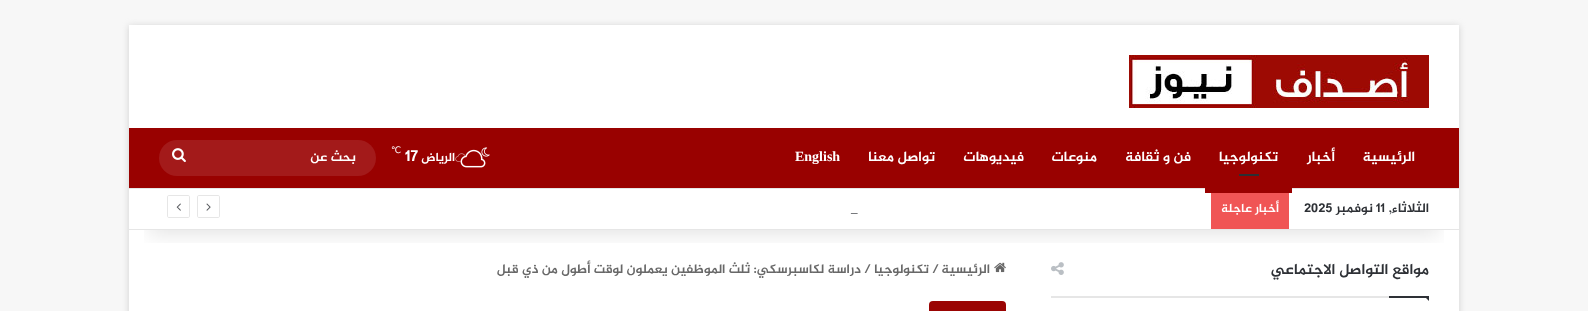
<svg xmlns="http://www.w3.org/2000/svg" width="1588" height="311">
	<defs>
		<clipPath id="clip1"><rect x="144" y="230" width="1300" height="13" /></clipPath>
	</defs>
	<rect width="100%" height="100%" fill="#F7F7F7" />
	<rect x="129" y="26" width="1330" height="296" fill="#ABABAB" fill-opacity="0.5" filter="blur(3.5px)" />
	<rect x="129" y="25" width="1330" height="286" fill="#FFFFFF" />
	<image x="1051" y="262" width="13" height="13" href="assets/img9.png" />
	<image x="994" y="262" width="12" height="11" href="assets/img10.png" />
	<g clip-path="url(#clip1)">
		<rect x="149" y="70" width="1290" height="165" fill="#000000" fill-opacity="0.1" filter="blur(10px)" />
	</g>
	<image x="1129" y="55" width="300" height="53" href="assets/img1.png" />
	<rect x="129" y="128" width="1330" height="60" fill="#990100" />
	<g font-family="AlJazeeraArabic" font-size="14" font-weight="700" direction="rtl" fill="#FFFFFF">
		<text x="1415" y="161">الرئيسية</text>
		<text x="1335" y="161">أخبار</text>
	</g>
	<rect x="129" y="188" width="1330" height="1" fill="#E6E6E6" />
	<rect x="1205" y="188" width="87" height="5" fill="#990100" />
	<text x="1278" y="161" font-family="AlJazeeraArabic" font-size="14" font-weight="700" direction="rtl" fill="#FFFFFF">تكنولوجيا</text>
	<rect x="1239" y="174" width="20" height="2" fill="#2C2F34" />
	<g font-family="AlJazeeraArabic" font-size="14" font-weight="700" direction="rtl" fill="#FFFFFF">
		<text x="1191" y="161">فن و ثقافة</text>
		<text x="1097" y="161">منوعات</text>
		<text x="1024" y="161">فيديوهات</text>
		<text x="935" y="161">تواصل معنا</text>
	</g>
	<text x="795" y="161" font-family="Liberation Serif" font-size="14" font-weight="700" fill="#FFFFFF">English</text>
	<image x="481" y="147" width="9" height="10" href="assets/img2.png" />
	<image x="455" y="153" width="11" height="9" href="assets/img4.png" />
	<image x="460" y="155" width="8" height="7" href="assets/img5.png" />
	<image x="460" y="149" width="26" height="19" href="assets/img3.png" />
	<text x="455" y="161" font-family="AlJazeeraArabic" font-size="12" font-weight="700" direction="rtl" fill="#FFFFFF">الرياض</text>
	<text x="405" y="161" font-family="AlJazeeraArabic" font-size="16" font-weight="700" fill="#FFFFFF">17</text>
	<text x="391" y="153" font-family="DejaVu Sans" font-size="9" fill="#FFFFFF">℃</text>
	<rect x="159" y="140" width="217" height="36" rx="18" fill="#A31A1A" />
	<text x="356" y="161" font-family="AlJazeeraArabic" font-size="13" font-weight="700" direction="rtl" fill="#FFFFFF">بحث عن</text>
	<image x="172" y="148" width="14" height="15" href="assets/img6.png" />
	<rect x="129" y="229" width="1330" height="1" fill="#E6E6E6" />
	<text x="1429" y="212" font-family="AlJazeeraArabic" font-size="13" font-weight="700" direction="rtl" fill="#2E3136">الثلاثاء,</text>
	<text x="1376" y="212" font-family="AlJazeeraArabic" font-size="13" font-weight="700" fill="#2E3136">11</text>
	<text x="1373" y="212" font-family="AlJazeeraArabic" font-size="13" font-weight="700" direction="rtl" fill="#2E3136">نوفمبر</text>
	<text x="1304" y="212" font-family="AlJazeeraArabic" font-size="13" font-weight="700" fill="#2E3136">2025</text>
	<rect x="1211" y="193" width="78" height="36" fill="#F05555" />
	<text x="1279" y="212" font-family="AlJazeeraArabic" font-size="12" font-weight="700" direction="rtl" fill="#FFFFFF">أخبار عاجلة</text>
	<text x="851" y="212" font-family="Liberation Serif" font-size="13" fill="#2E3136">_</text>
	<path d="M218 217.5H199C198 217.5 197.5 217 197.5 216V197C197.5 196 198 195.5 199 195.5H218C219 195.5 219.5 196 219.5 197V216C219.5 217 219 217.5 218 217.5Z" fill="none" stroke="#E6E6E6" />
	<image x="206" y="203" width="5" height="8" href="assets/img7.png" />
	<path d="M188 217.5H169C168 217.5 167.5 217 167.5 216V197C167.5 196 168 195.5 169 195.5H188C189 195.5 189.5 196 189.5 197V216C189.5 217 189 217.5 188 217.5Z" fill="none" stroke="#E6E6E6" />
	<image x="176" y="203" width="5" height="8" href="assets/img8.png" />
	<rect x="1051" y="296" width="338" height="2" fill="#E6E6E6" />
	<text x="1429" y="274" font-family="AlJazeeraArabic" font-size="15" font-weight="700" direction="rtl" fill="#2E3136">مواقع التواصل الاجتماعي</text>
	<path d="M1424 296H1429V301Z" fill="#2E3136" />
	<rect x="1389" y="296" width="40" height="2" fill="#2E3136" />
	<text x="990" y="273" font-family="AlJazeeraArabic" font-size="13" font-weight="700" direction="rtl" fill="#686868">الرئيسية</text>
	<text x="932" y="273" font-family="AlJazeeraArabic" font-size="13" font-weight="700" fill="#686868">/</text>
	<text x="929" y="273" font-family="AlJazeeraArabic" font-size="13" font-weight="700" direction="rtl" fill="#686868">تكنولوجيا</text>
	<text x="864" y="273" font-family="AlJazeeraArabic" font-size="13" font-weight="700" fill="#686868">/</text>
	<text x="861" y="273" font-family="AlJazeeraArabic" font-size="13" font-weight="700" direction="rtl" fill="#686868">دراسة لكاسبرسكي: ثلث الموظفين يعملون لوقت أطول من ذي قبل</text>
	<rect x="929" y="301" width="77" height="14" rx="4" fill="#9A0403" />
</svg>
